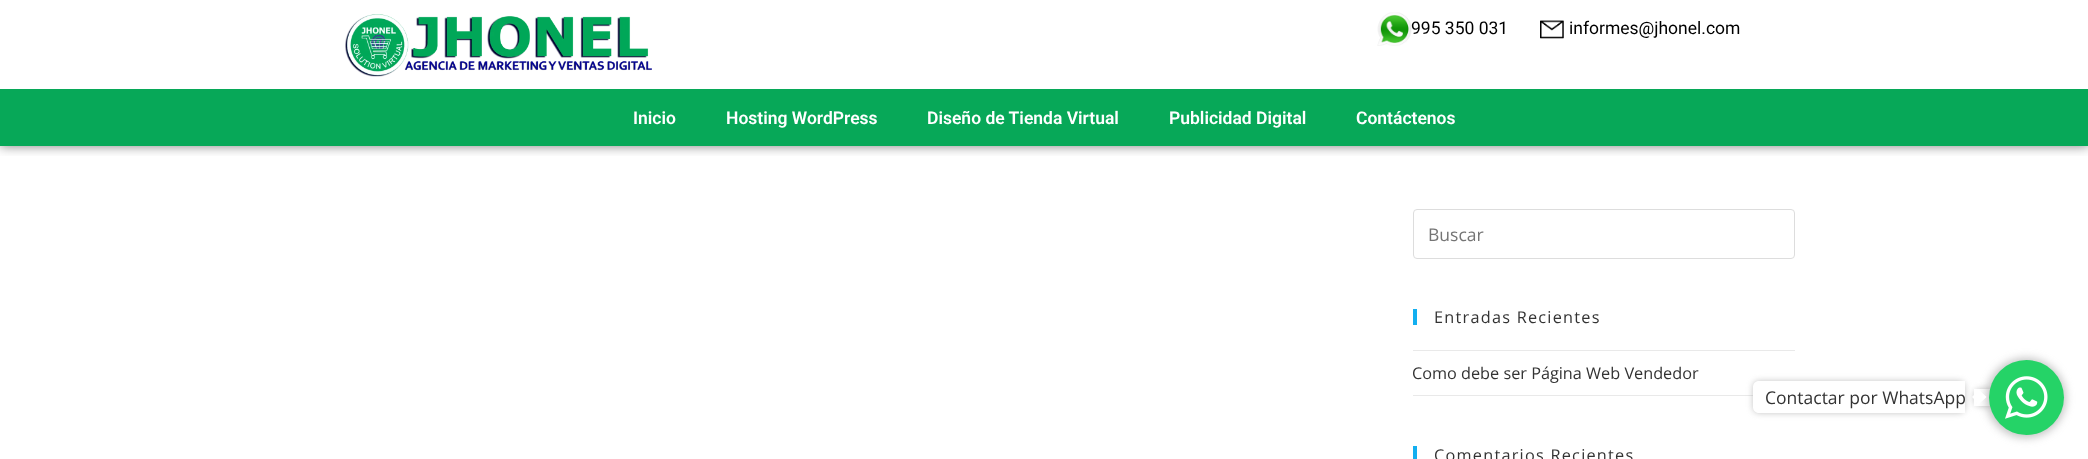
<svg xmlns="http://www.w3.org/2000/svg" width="2088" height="459">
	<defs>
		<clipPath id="clip1"><rect x="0" y="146" width="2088" height="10" /></clipPath>
	</defs>
	<rect width="100%" height="100%" fill="#FFFFFF" />
	<g clip-path="url(#clip1)">
		<rect x="0" y="0" width="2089" height="146" fill="#000000" fill-opacity="0.5" filter="blur(6px)" />
	</g>
	<image x="345" y="14" width="307" height="63" href="assets/img1.png" />
	<image x="1377" y="12" width="35" height="34" href="assets/img2.png" />
	<text x="1411" y="34" font-family="Roboto" font-size="17.5" fill="#000000">995 350 031</text>
	<image x="1540" y="20" width="24" height="19" href="assets/img3.png" />
	<text x="1569" y="34" font-family="Roboto" font-size="17.5" fill="#000000">informes@jhonel.com</text>
	<rect x="0" y="89" width="2088" height="57" fill="#07A858" />
	<g font-family="Roboto" font-size="17.5" font-weight="600" fill="#FFFFFF">
		<text x="633" y="124">Inicio</text>
		<text x="726" y="124">Hosting WordPress</text>
		<text x="927" y="124">Diseño de Tienda Virtual</text>
		<text x="1169" y="124">Publicidad Digital</text>
		<text x="1356" y="124">Contáctenos</text>
	</g>
	<rect x="1413.5" y="209.5" width="381" height="49" rx="3.5" fill="none" stroke="#DDDDDD" />
	<text x="1428" y="241" font-family="Open Sans" font-size="17.5" fill="#757575">Buscar</text>
	<rect x="1413" y="309" width="4" height="16" fill="#13AFF0" />
	<text x="1434" y="323" font-family="Open Sans" font-size="16.25" letter-spacing="1.25" fill="#333333">Entradas Recientes</text>
	<rect x="1413" y="350" width="382" height="1" fill="#E9E9E9" />
	<rect x="1413" y="395" width="340" height="1" fill="#E9E9E9" />
	<text x="1412" y="379" font-family="Open Sans" font-size="16.25" fill="#333333">Como debe ser Página Web Vendedor</text>
	<rect x="1413" y="446" width="4" height="13" fill="#13AFF0" />
	<text x="1434" y="461" font-family="Open Sans" font-size="16.25" letter-spacing="1.25" fill="#333333">Comentarios Recientes</text>
	<rect x="1753" y="381" width="212" height="32" rx="6" fill="#888888" fill-opacity="0.5" filter="blur(3px)" />
	<path d="M1759 381H1965V413H1759C1755.5 413 1753 410.5 1753 407V387C1753 383.5 1755.5 381 1759 381Z" fill="#FFFFFF" />
	<rect x="1974" y="389" width="22" height="17" rx="6" fill="#888888" fill-opacity="0.5" filter="blur(3px)" />
	<rect x="1974" y="389" width="16" height="17" fill="#FFFFFF" />
	<text x="1765" y="404" font-family="Open Sans" font-size="17.5" fill="#333333">Contactar por WhatsApp</text>
	<rect x="1986" y="358" width="80" height="80" rx="40" fill="#888888" fill-opacity="0.5" filter="blur(4.5px)" />
	<path d="M1972 397L1979 390L1986.5 397L1979 404Z" fill="#FFFFFF" />
	<circle cx="2026.5" cy="397.5" r="37.5" fill="#25D367" />
	<image x="2005" y="376" width="43" height="43" href="assets/img4.png" />
</svg>
